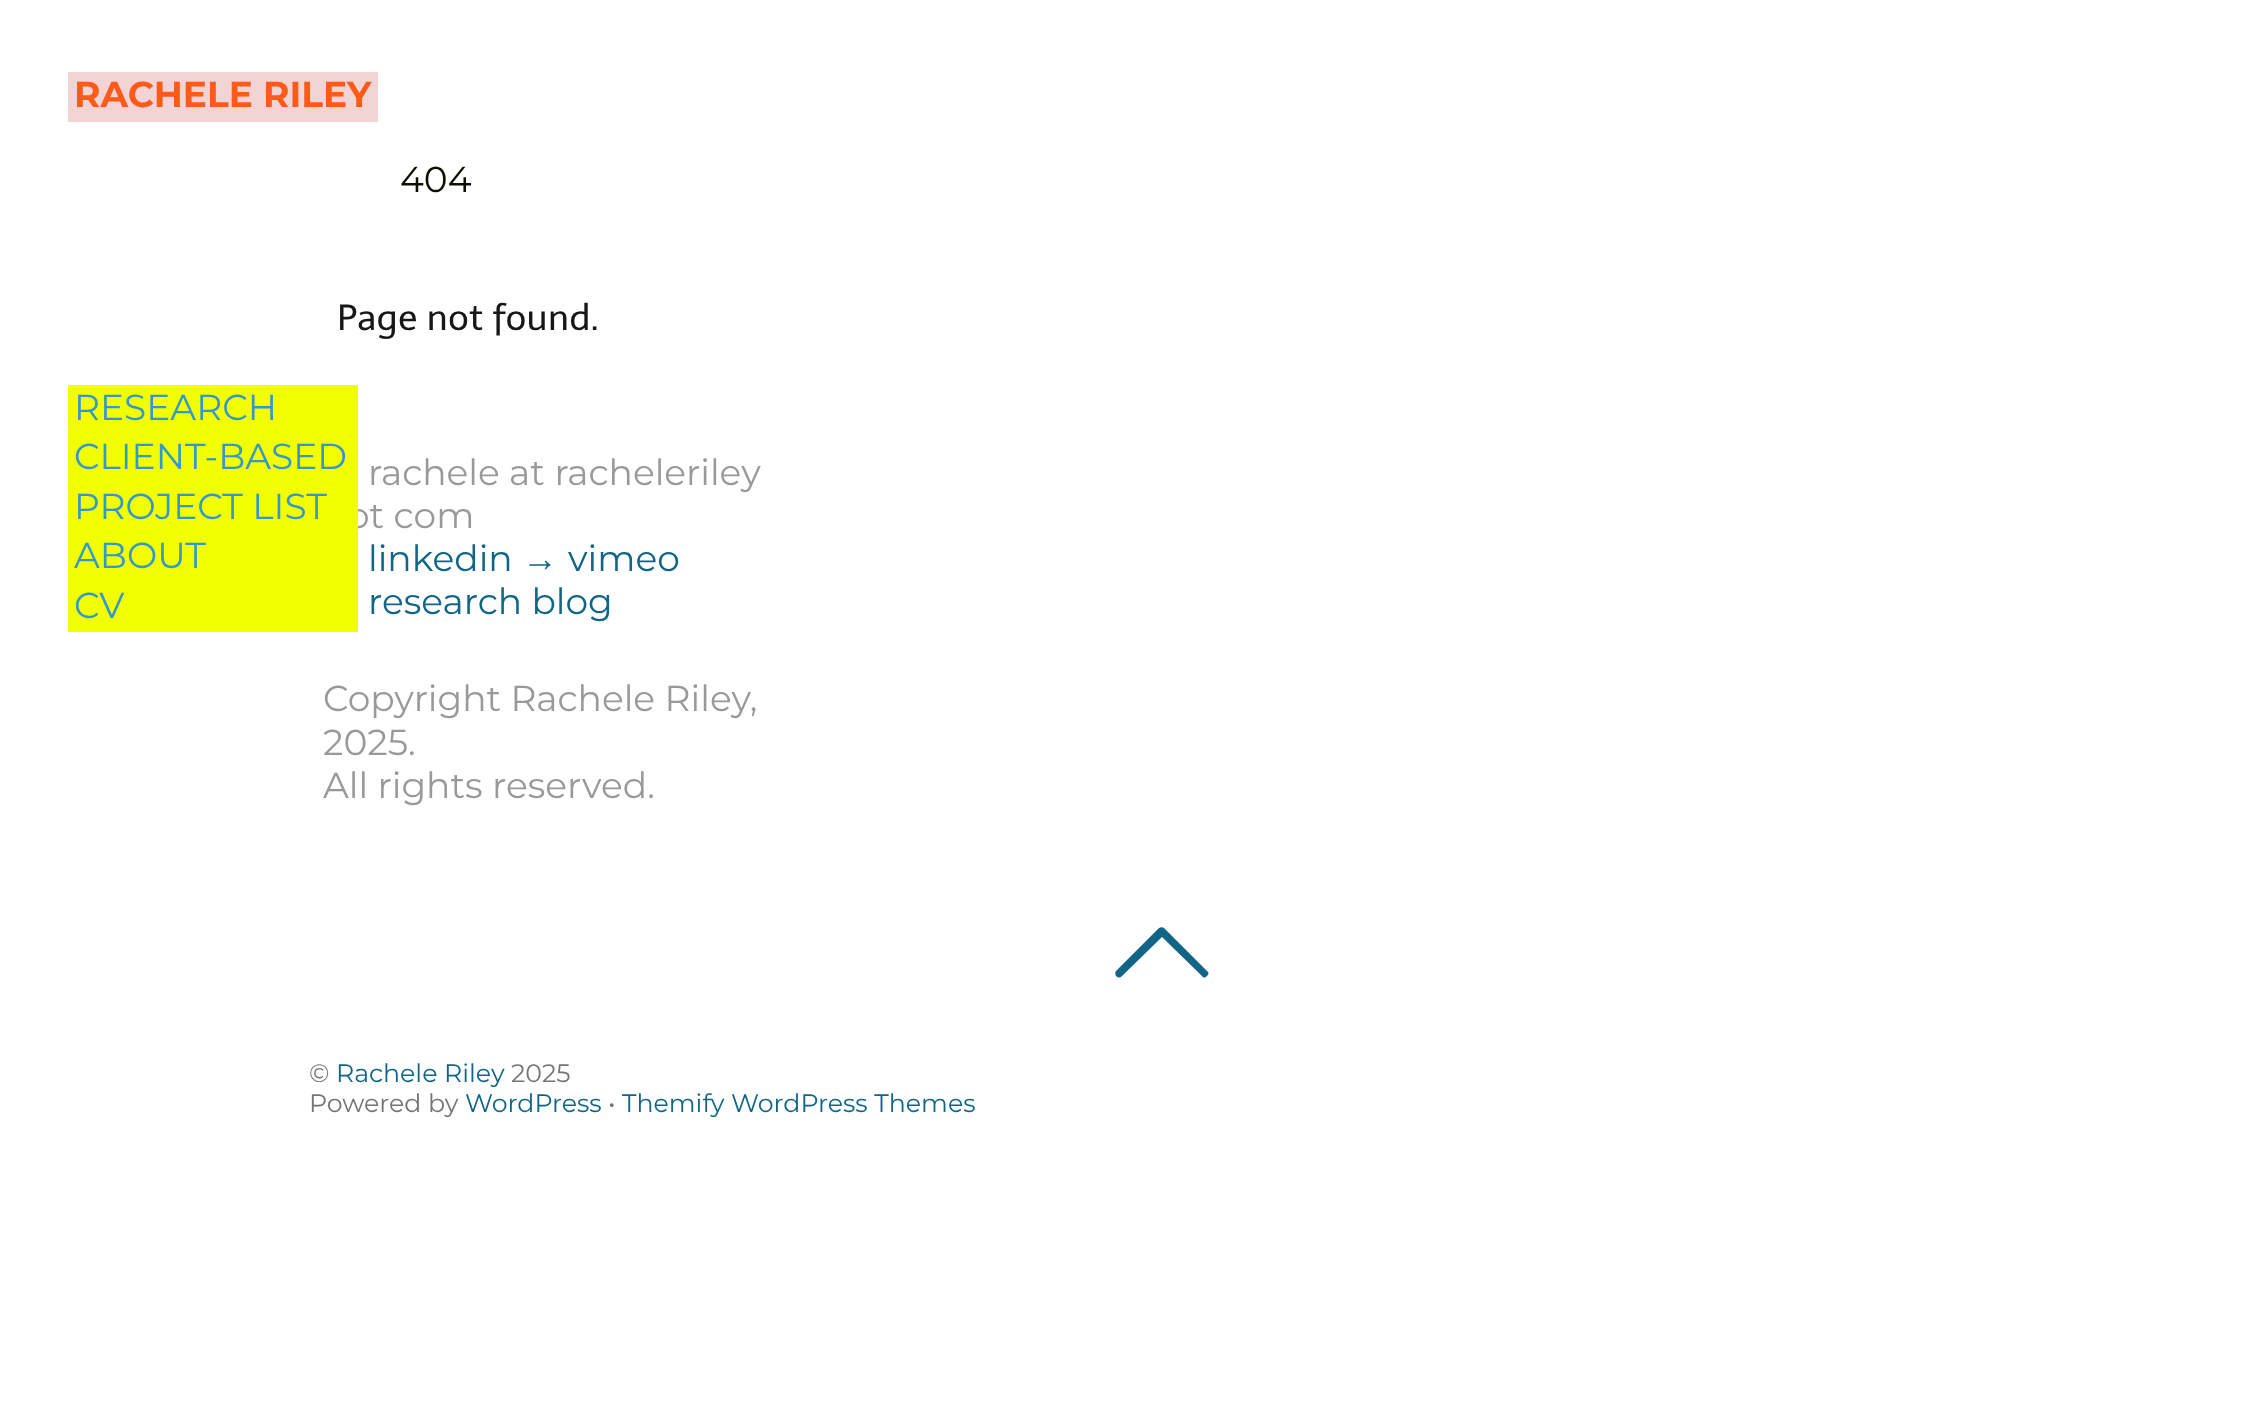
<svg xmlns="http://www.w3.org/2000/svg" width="2257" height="1421">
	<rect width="100%" height="100%" fill="#FFFFFF" />
	<rect x="68" y="72" width="310" height="50" fill="#F2D4D4" />
	<text x="74" y="107" font-family="Montserrat" font-size="36" font-weight="700" fill="#FF5A19">RACHELE RILEY</text>
	<text x="347" y="528" font-family="Montserrat" font-size="36" font-weight="100" fill="#999999">ot com</text>
	<rect x="68" y="385" width="290" height="247" fill="#F2FF00" />
	<g font-family="Montserrat" font-size="36" font-weight="100" fill="#3399CC">
		<text x="74" y="420">RESEARCH</text>
		<text x="74" y="469">CLIENT-BASED</text>
		<text x="74" y="519">PROJECT LIST</text>
		<text x="74" y="568">ABOUT</text>
		<text x="74" y="618">CV</text>
	</g>
	<text x="400" y="192" font-family="Montserrat" font-size="36" font-weight="100" fill="#0F0F00">404</text>
	<text x="337" y="330" font-family="Telex" font-size="36" fill="#171717">Page not found.</text>
	<text x="368" y="485" font-family="Montserrat" font-size="36" font-weight="100" fill="#999999">rachele at racheleriley</text>
	<text x="368" y="571" font-family="Montserrat" font-size="36" font-weight="100" fill="#116687">linkedin</text>
	<text x="522" y="571" font-family="Liberation Serif" font-size="36" fill="#116687">→</text>
	<g font-family="Montserrat" font-size="36" font-weight="100" fill="#116687">
		<text x="568" y="571">vimeo</text>
		<text x="368" y="614">research blog</text>
	</g>
	<g font-family="Montserrat" font-size="36" font-weight="100" fill="#999999">
		<text x="323" y="711">Copyright Rachele Riley,</text>
		<text x="323" y="755">2025.</text>
		<text x="323" y="798">All rights reserved.</text>
	</g>
	<path d="M1202 976L1162 937L1122 976C1120 978 1118 978 1116 976C1115 974 1115 972 1116 971L1159 928C1161 927 1163 927 1164 928L1207 971C1209 972 1209 974 1207 976C1205 978 1203 978 1202 976Z" fill="#116687" />
	<text x="309" y="1082" font-family="Montserrat" font-size="25.25" font-weight="100" fill="#757575">©</text>
	<text x="336" y="1082" font-family="Montserrat" font-size="25.25" font-weight="100" fill="#116687">Rachele Riley</text>
	<g font-family="Montserrat" font-size="25.25" font-weight="100" fill="#757575">
		<text x="511" y="1082">2025</text>
		<text x="309" y="1112">Powered by</text>
	</g>
	<text x="465" y="1112" font-family="Montserrat" font-size="25.25" font-weight="100" fill="#116687">WordPress</text>
	<text x="608" y="1112" font-family="Montserrat" font-size="25.25" font-weight="100" fill="#757575">•</text>
	<text x="622" y="1112" font-family="Montserrat" font-size="25.25" font-weight="100" fill="#116687">Themify WordPress Themes</text>
</svg>
